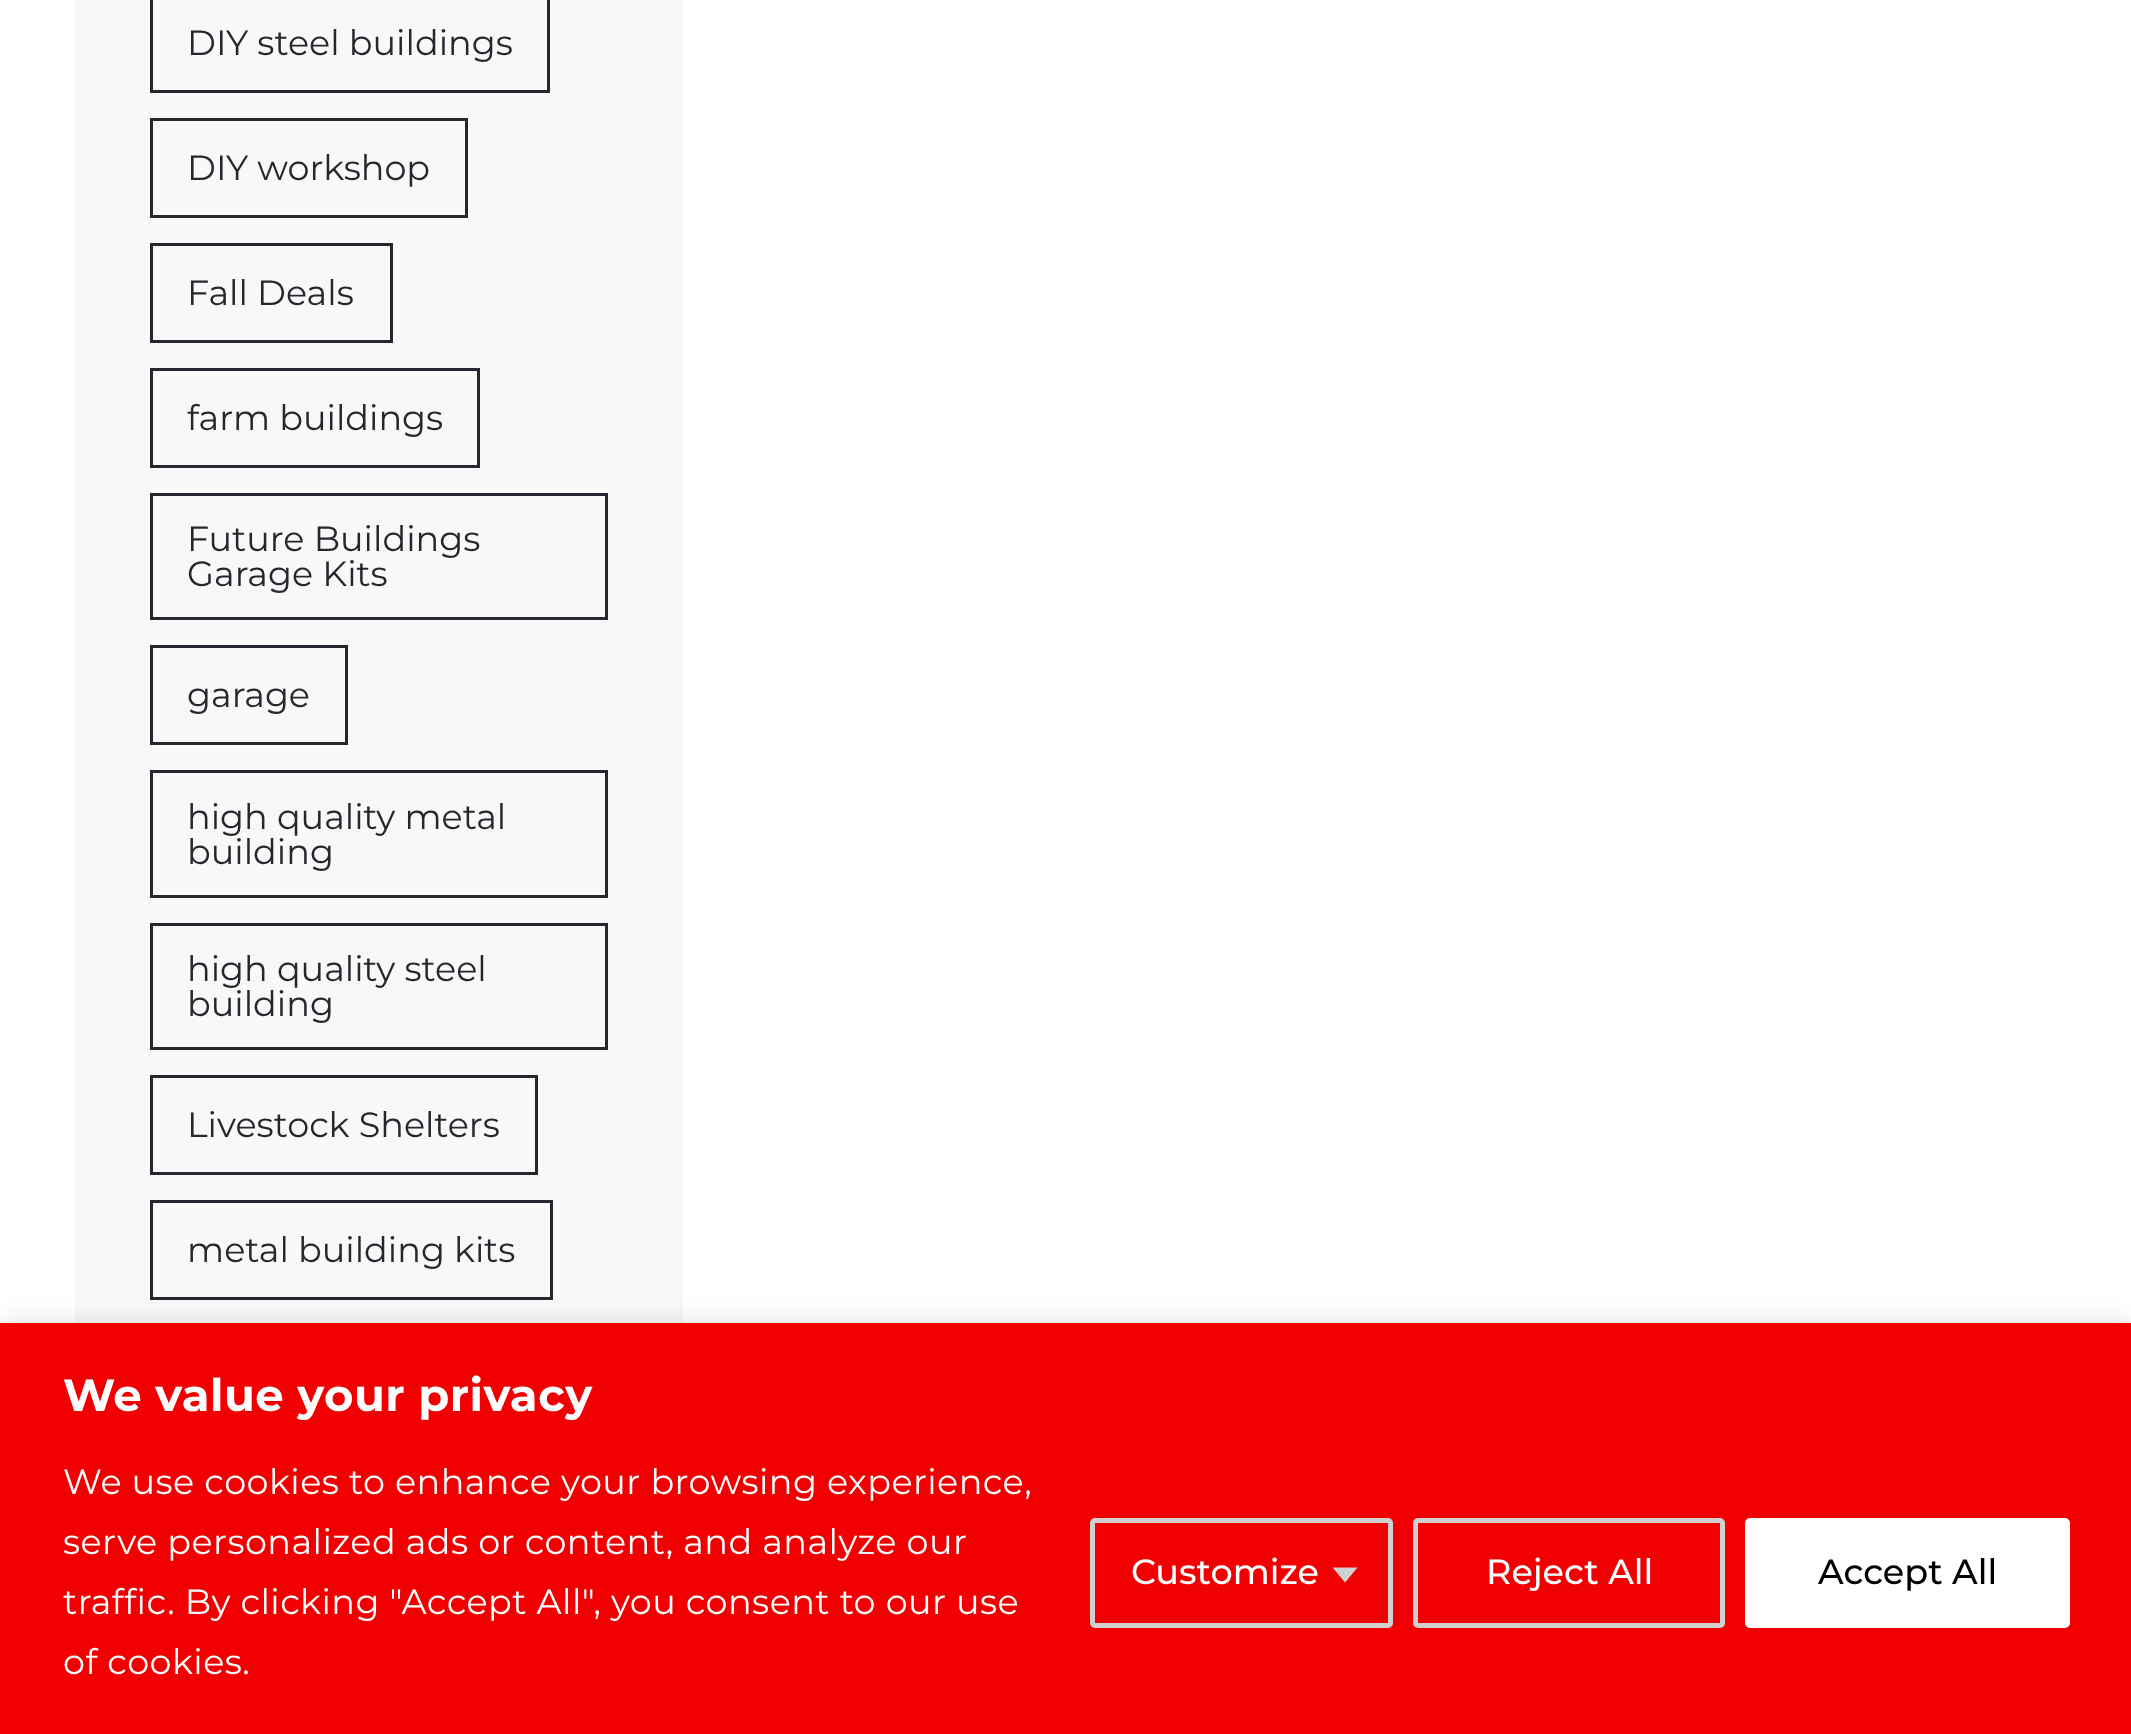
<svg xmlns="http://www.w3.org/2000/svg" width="2131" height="1734">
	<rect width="100%" height="100%" fill="#FFFFFF" />
	<rect x="75" y="0" width="608" height="1323" fill="#F8F8F8" />
	<rect x="151.5" y="-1.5" width="397" height="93" fill="none" stroke="#24272D" stroke-width="3" />
	<text x="187" y="55" font-family="Montserrat" font-size="35" fill="#24272D">DIY steel buildings</text>
	<rect x="151.5" y="119.5" width="315" height="97" fill="none" stroke="#24272D" stroke-width="3" />
	<text x="187" y="180" font-family="Montserrat" font-size="35" fill="#24272D">DIY workshop</text>
	<rect x="151.5" y="244.5" width="240" height="97" fill="none" stroke="#24272D" stroke-width="3" />
	<text x="187" y="305" font-family="Montserrat" font-size="35" fill="#24272D">Fall Deals</text>
	<rect x="151.5" y="369.5" width="327" height="97" fill="none" stroke="#24272D" stroke-width="3" />
	<text x="187" y="430" font-family="Montserrat" font-size="35" fill="#24272D">farm buildings</text>
	<rect x="151.5" y="494.5" width="455" height="124" fill="none" stroke="#24272D" stroke-width="3" />
	<g font-family="Montserrat" font-size="35" fill="#24272D">
		<text x="187" y="551">Future Buildings</text>
		<text x="187" y="586">Garage Kits</text>
	</g>
	<rect x="151.5" y="646.5" width="195" height="97" fill="none" stroke="#24272D" stroke-width="3" />
	<text x="187" y="707" font-family="Montserrat" font-size="35" fill="#24272D">garage</text>
	<rect x="151.5" y="771.5" width="455" height="125" fill="none" stroke="#24272D" stroke-width="3" />
	<g font-family="Montserrat" font-size="35" fill="#24272D">
		<text x="187" y="829">high quality metal</text>
		<text x="187" y="864">building</text>
	</g>
	<rect x="151.5" y="924.5" width="455" height="124" fill="none" stroke="#24272D" stroke-width="3" />
	<g font-family="Montserrat" font-size="35" fill="#24272D">
		<text x="187" y="981">high quality steel</text>
		<text x="187" y="1016">building</text>
	</g>
	<rect x="151.5" y="1076.5" width="385" height="97" fill="none" stroke="#24272D" stroke-width="3" />
	<text x="187" y="1137" font-family="Montserrat" font-size="35" fill="#24272D">Livestock Shelters</text>
	<rect x="151.5" y="1201.5" width="400" height="97" fill="none" stroke="#24272D" stroke-width="3" />
	<text x="187" y="1262" font-family="Montserrat" font-size="35" fill="#24272D">metal building kits</text>
	<rect x="0" y="1320" width="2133" height="413" fill="#ACABAB" fill-opacity="0.3" filter="blur(12.5px)" />
	<rect x="0" y="1323" width="2131" height="411" fill="#F00000" />
	<text x="63" y="1411" font-family="Montserrat" font-size="45" font-weight="700" letter-spacing="0.45" fill="#FFFFFF">We value your privacy</text>
	<g font-family="Montserrat" font-size="35" letter-spacing="0.45" fill="#FFFFFF">
		<text x="63" y="1494">We use cookies to enhance your browsing experience,</text>
		<text x="63" y="1554">serve personalized ads or content, and analyze our</text>
		<text x="63" y="1614">traffic. By clicking "Accept All", you consent to our use</text>
		<text x="63" y="1674">of cookies.</text>
	</g>
	<rect x="1092.5" y="1520.5" width="298" height="105" rx="2.5" fill="none" stroke="#D0D0D0" stroke-width="5" />
	<text x="1131" y="1584" font-family="Montserrat" font-size="35" font-weight="500" fill="#FFFFFF">Customize</text>
	<path d="M1332.5 1567.5H1357.5L1345 1582.5Z" fill="#D0D0D0" />
	<rect x="1415.5" y="1520.5" width="307" height="105" rx="2.5" fill="none" stroke="#D0D0D0" stroke-width="5" />
	<text x="1486" y="1584" font-family="Montserrat" font-size="35" font-weight="500" fill="#FFFFFF">Reject All</text>
	<rect x="1747.5" y="1520.5" width="320" height="105" rx="2.5" fill="#FFFFFF" stroke="#FFFFFF" stroke-width="5" />
	<text x="1818" y="1584" font-family="Montserrat" font-size="35" font-weight="500" fill="#000000">Accept All</text>
</svg>
